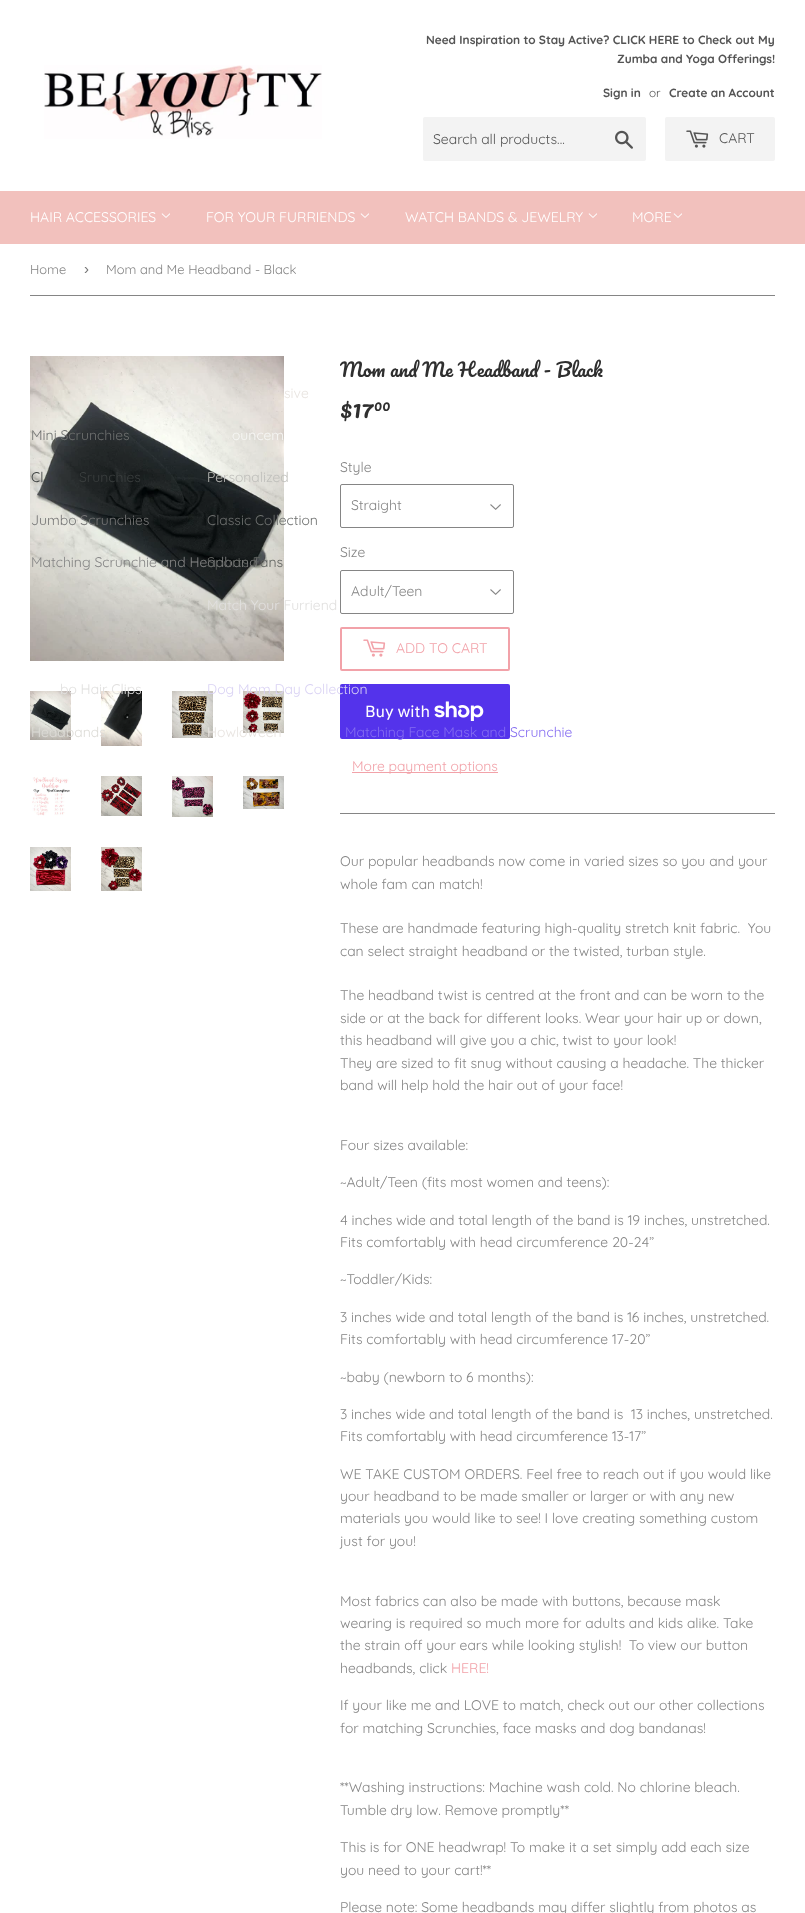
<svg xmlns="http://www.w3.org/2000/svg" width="805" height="1913">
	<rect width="100%" height="100%" fill="#FFFFFF" />
	<image x="44" y="65" width="278" height="74" href="assets/img1.png" />
	<g font-family="Quicksand" font-size="11.9" font-weight="700" fill="#545454">
		<text x="426" y="44">Need Inspiration to Stay Active? CLICK HERE to Check out My</text>
		<text x="617" y="63">Zumba and Yoga Offerings!</text>
		<text x="603" y="97">Sign in</text>
	</g>
	<text x="649" y="97" font-family="Quicksand" font-size="11.9" fill="#545454">or</text>
	<text x="669" y="97" font-family="Quicksand" font-size="11.9" font-weight="700" fill="#545454">Create an Account</text>
	<rect x="423" y="117" width="223" height="44" rx="2" fill="#F3F3F3" />
	<text x="433" y="144" font-family="Quicksand" font-size="14" fill="#545454">Search all products...</text>
	<image x="615" y="130" width="18" height="19" href="assets/img2.png" />
	<rect x="665" y="117" width="110" height="44" rx="2" fill="#F3F3F3" />
	<image x="686" y="130" width="23" height="18" href="assets/img3.png" />
	<text x="719" y="143" font-family="Quicksand" font-size="14" fill="#545454">CART</text>
	<rect x="0" y="191" width="805" height="53" fill="#F2C1BD" />
	<text x="30" y="222" font-family="Quicksand" font-size="14" fill="#FFFFFF">HAIR ACCESSORIES</text>
	<image x="161" y="213" width="9" height="5" href="assets/img4.png" />
	<image x="30" y="356" width="254" height="305" href="assets/img5.png" />
	<text x="31" y="440" font-family="Quicksand" font-size="14" fill="#6E706F">Mini Scrunchies</text>
	<g font-family="Quicksand" font-size="14" fill="#3B3F3F">
		<text x="31" y="482">Cl</text>
		<text x="79" y="482">Srunchies</text>
	</g>
	<text x="31" y="525" font-family="Quicksand" font-size="14" fill="#767676">Jumbo Scrunchies</text>
	<text x="31" y="567" font-family="Quicksand" font-size="14" fill="#858585">Matching Scrunchie and Headband</text>
	<image x="30" y="691" width="41" height="49" href="assets/img6.png" />
	<image x="101" y="691" width="41" height="55" href="assets/img7.png" />
	<text x="60" y="694" font-family="Quicksand" font-size="14" fill="#E1E0DF">bo Hair Clips</text>
	<text x="31" y="737" font-family="Quicksand" font-size="14" fill="#DDDCD7">Headbands</text>
	<text x="206" y="222" font-family="Quicksand" font-size="14" fill="#FFFFFF">FOR YOUR FURRIENDS</text>
	<image x="360" y="213" width="9" height="5" href="assets/img4.png" />
	<text x="284" y="398" font-family="Quicksand" font-size="14" fill="#E8E4E0">sive</text>
	<text x="232" y="440" font-family="Quicksand" font-size="14" fill="#F6F6F4">ouncem</text>
	<text x="207" y="482" font-family="Quicksand" font-size="14" fill="#BFBFBB">Personalized</text>
	<text x="207" y="525" font-family="Quicksand" font-size="14" fill="#6E706F">Classic Collection</text>
	<text x="207" y="567" font-family="Quicksand" font-size="14" fill="#5F625F">Sports Fans</text>
	<text x="207" y="610" font-family="Quicksand" font-size="14" fill="#E1E0DF">Match Your Furriend</text>
	<image x="172" y="691" width="41" height="47" href="assets/img8.png" />
	<image x="243" y="691" width="41" height="42" href="assets/img9.png" />
	<rect x="340" y="684" width="170" height="55" rx="2" fill="#5433EB" />
	<text x="207" y="694" font-family="Quicksand" font-size="14" fill="#DAD3F4">Dog Mom Day Collection</text>
	<text x="207" y="737" font-family="Quicksand" font-size="14" fill="#E8E4E0">Howloween</text>
	<text x="632" y="222" font-family="Quicksand" font-size="14" fill="#FFFFFF">MORE</text>
	<image x="673" y="213" width="9" height="5" href="assets/img4.png" />
	<text x="345" y="737" font-family="Quicksand" font-size="14" fill="#856DF1">Matching Face Mask and Scrunchie</text>
	<text x="405" y="222" font-family="Quicksand" font-size="14" fill="#FFFFFF">WATCH BANDS &amp; JEWELRY</text>
	<image x="588" y="213" width="9" height="5" href="assets/img4.png" />
	<rect x="30" y="295" width="745" height="1" fill="#858585" />
	<text x="30" y="274" font-family="Quicksand" font-size="13" fill="#858585">Home</text>
	<text x="84" y="274" font-family="Liberation Sans" font-size="15" fill="#767676">›</text>
	<text x="106" y="274" font-family="Quicksand" font-size="13" fill="#858585">Mom and Me Headband - Black</text>
	<image x="32" y="777" width="38" height="39" href="assets/img10.png" />
	<image x="101" y="776" width="41" height="40" href="assets/img11.png" />
	<image x="172" y="776" width="41" height="41" href="assets/img12.png" />
	<image x="243" y="776" width="41" height="33" href="assets/img13.png" />
	<image x="30" y="847" width="41" height="44" href="assets/img14.png" />
	<image x="101" y="847" width="41" height="44" href="assets/img15.png" />
	<text x="340" y="377" font-family="Pacifico" font-size="18.7" fill="#2F2F2F">Mom and Me Headband - Black</text>
	<text x="340" y="418" font-family="Pacifico" font-size="24" fill="#2F2F2F">$17</text>
	<text x="374" y="411" font-family="Pacifico" font-size="15" fill="#2F2F2F">00</text>
	<text x="340" y="472" font-family="Quicksand" font-size="14" fill="#858585">Style</text>
	<image x="490" y="504" width="11" height="6" href="assets/img16.png" />
	<rect x="340.5" y="484.5" width="173" height="43" rx="1.5" fill="none" stroke="#858585" />
	<g font-family="Quicksand" font-size="14" fill="#858585">
		<text x="351" y="510">Straight</text>
		<text x="340" y="557">Size</text>
	</g>
	<image x="490" y="589" width="11" height="6" href="assets/img16.png" />
	<rect x="340.5" y="570.5" width="173" height="43" rx="1.5" fill="none" stroke="#858585" />
	<text x="351" y="596" font-family="Quicksand" font-size="14" fill="#858585">Adult/Teen</text>
	<rect x="341" y="628" width="168" height="42" rx="1" fill="none" stroke="#F2A2A9" stroke-width="2" />
	<image x="363" y="639" width="23" height="18" href="assets/img17.png" />
	<text x="396" y="653" font-family="Quicksand" font-size="14" fill="#F2A2A9">ADD TO CART</text>
	<text x="365" y="717" font-family="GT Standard" font-size="16" fill="#FFFFFF">Buy with</text>
	<image x="434" y="701" width="50" height="20" href="assets/img18.png" />
	<rect x="352" y="772" width="146" height="1" fill="#F2A2A9" />
	<text x="352" y="771" font-family="Quicksand" font-size="14" fill="#F2A2A9">More payment options</text>
	<rect x="340" y="813" width="435" height="1" fill="#858585" />
	<g font-family="Quicksand" font-size="14" fill="#858585">
		<text x="340" y="866">Our popular headbands now come in varied sizes so you and your</text>
		<text x="340" y="889">whole fam can match!</text>
		<text x="340" y="933" xml:space="preserve">These are handmade featuring high-quality stretch knit fabric.  You</text>
		<text x="340" y="956">can select straight headband or the twisted, turban style.</text>
		<text x="340" y="1000">The headband twist is centred at the front and can be worn to the</text>
		<text x="340" y="1023">side or at the back for different looks. Wear your hair up or down,</text>
		<text x="340" y="1045">this headband will give you a chic, twist to your look!</text>
		<text x="340" y="1068">They are sized to fit snug without causing a headache. The thicker</text>
		<text x="340" y="1090">band will help hold the hair out of your face!</text>
		<text x="340" y="1150">Four sizes available:</text>
		<text x="340" y="1187">~️Adult/Teen (fits most women and teens):</text>
		<text x="340" y="1225">4 inches wide and total length of the band is 19 inches, unstretched.</text>
		<text x="340" y="1247">Fits comfortably with head circumference 20-24”</text>
		<text x="340" y="1284">~️Toddler/Kids:</text>
		<text x="340" y="1322">3 inches wide and total length of the band is 16 inches, unstretched.</text>
		<text x="340" y="1344">Fits comfortably with head circumference 17-20”</text>
		<text x="340" y="1382">~baby (newborn to 6 months):</text>
		<text x="340" y="1419" xml:space="preserve">3 inches wide and total length of the band is  13 inches, unstretched.</text>
		<text x="340" y="1441">Fits comfortably with head circumference 13-17”</text>
		<text x="340" y="1479">WE TAKE CUSTOM ORDERS. Feel free to reach out if you would like</text>
		<text x="340" y="1501">your headband to be made smaller or larger or with any new</text>
		<text x="340" y="1523">materials you would like to see! I love creating something custom</text>
		<text x="340" y="1546">just for you!</text>
		<text x="340" y="1606">Most fabrics can also be made with buttons, because mask</text>
		<text x="340" y="1628">wearing is required so much more for adults and kids alike. Take</text>
		<text x="340" y="1650" xml:space="preserve">the strain off your ears while looking stylish!  To view our button</text>
		<text x="340" y="1673">headbands, click</text>
	</g>
	<text x="451" y="1673" font-family="Quicksand" font-size="14" fill="#F2A2A9">HERE!</text>
	<g font-family="Quicksand" font-size="14" fill="#858585">
		<text x="340" y="1710">If your like me and LOVE to match, check out our other collections</text>
		<text x="340" y="1733">for matching Scrunchies, face masks and dog bandanas!</text>
		<text x="340" y="1792">**Washing instructions: Machine wash cold. No chlorine bleach.</text>
		<text x="340" y="1815">Tumble dry low. Remove promptly**</text>
		<text x="340" y="1852">This is for ONE headwrap! To make it a set simply add each size</text>
		<text x="340" y="1875">you need to your cart!**</text>
		<text x="340" y="1912">Please note: Some headbands may differ slightly from photos as</text>
	</g>
</svg>
